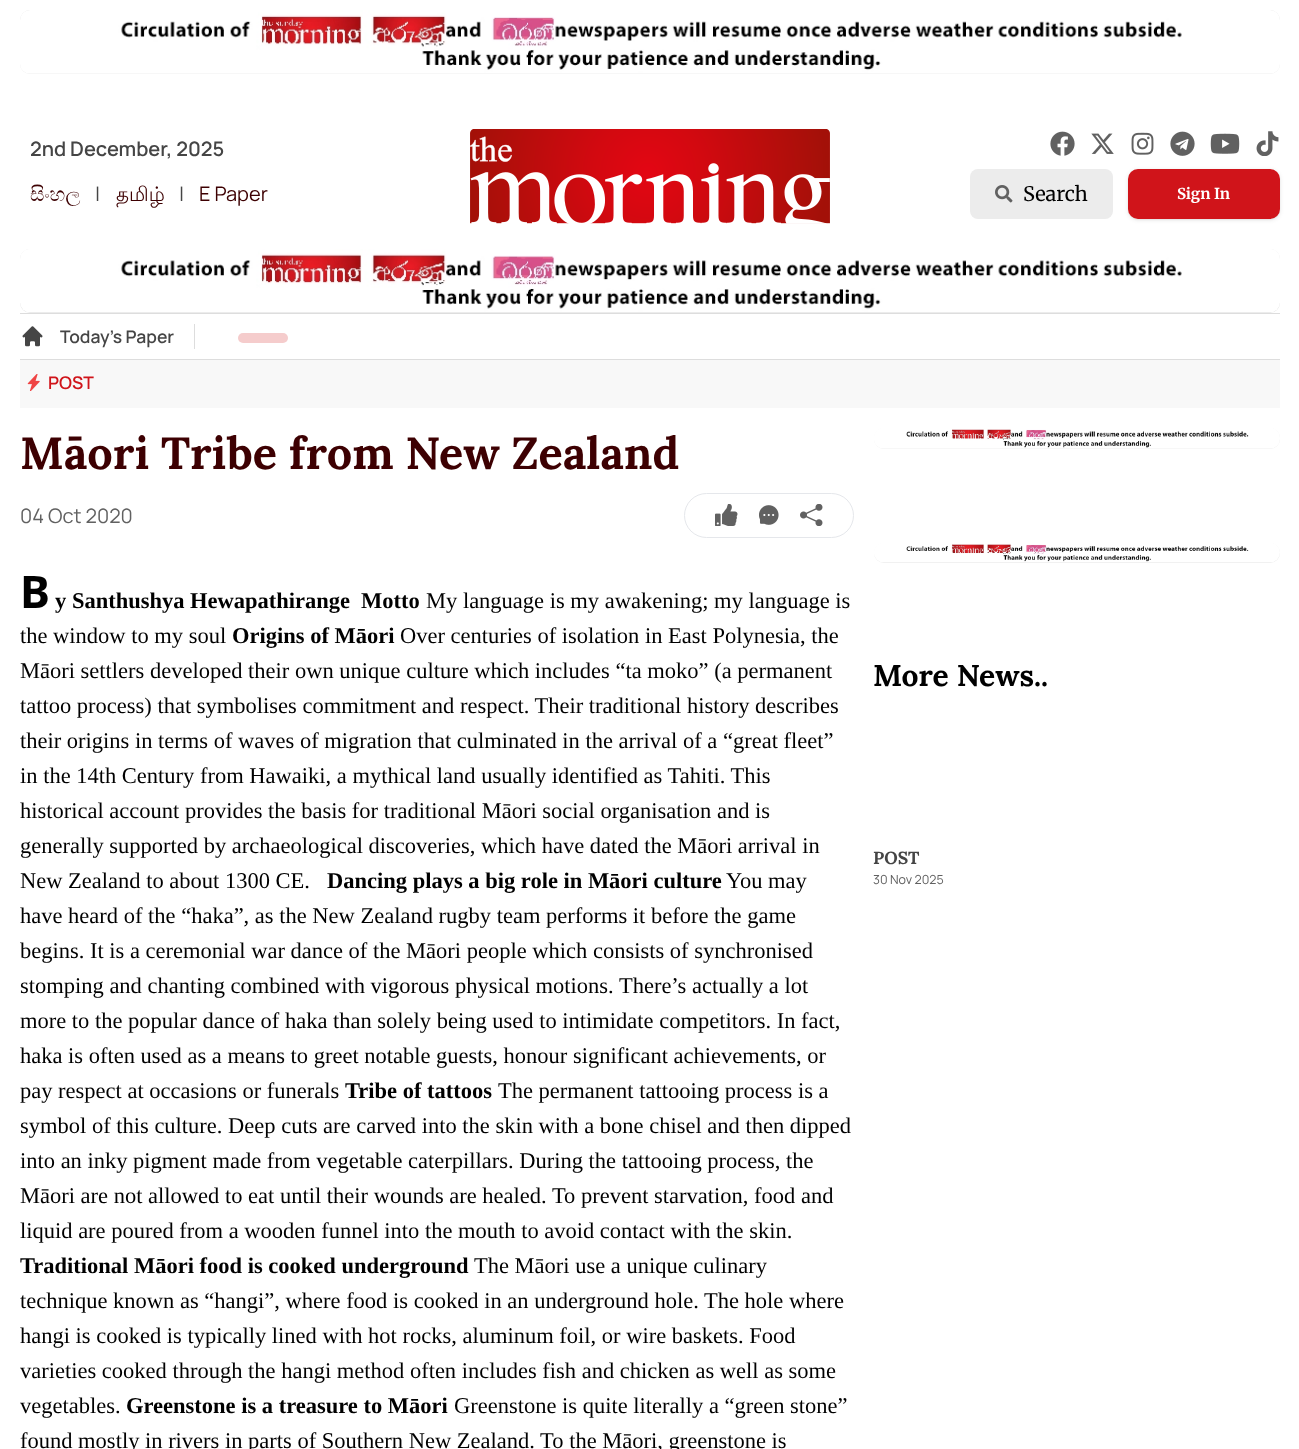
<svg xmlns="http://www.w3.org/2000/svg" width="1299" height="1449">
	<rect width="100%" height="100%" fill="#FFFFFF" />
	<rect x="20" y="10" width="1260" height="64" rx="10" fill="#ECECEC" />
	<image x="20" y="10" width="1260" height="64" href="assets/img1.png" />
	<text x="30" y="156" font-family="'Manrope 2'" font-size="20" font-weight="200" fill="#454545">2nd December, 2025</text>
	<text x="30" y="201" font-family="FreeSerif" font-size="20" fill="#3D0002">සිංහල</text>
	<text x="95" y="201" font-family="Manrope" font-size="20" font-weight="200" fill="#454545">|</text>
	<text x="116" y="201" font-family="Lohit Tamil" font-size="20" fill="#3D0002">தமிழ்</text>
	<text x="179" y="201" font-family="Manrope" font-size="20" font-weight="200" fill="#454545">|</text>
	<text x="199" y="201" font-family="Manrope" font-size="20" font-weight="200" fill="#3D0002">E Paper</text>
	<image x="470" y="129" width="360" height="95" href="assets/img2.png" />
	<image x="1050" y="131" width="25" height="25" href="assets/img3.png" />
	<image x="1091" y="133" width="23" height="21" href="assets/img4.png" />
	<image x="1131" y="132" width="23" height="23" href="assets/img5.png" />
	<image x="1170" y="131" width="25" height="25" href="assets/img6.png" />
	<image x="1210" y="133" width="30" height="21" href="assets/img7.png" />
	<image x="1256" y="131" width="23" height="25" href="assets/img8.png" />
	<rect x="970" y="169" width="143" height="50" rx="8" fill="#ECECEC" />
	<image x="995" y="185" width="18" height="18" href="assets/img9.png" />
	<text x="1023" y="201" font-family="Merriweather" font-size="20" fill="#000000">Search</text>
	<rect x="1129" y="171" width="150" height="48" rx="9" fill="#000000" fill-opacity="0.1" filter="blur(1px)" />
	<rect x="1128" y="170" width="152" height="50" rx="10" fill="#000000" fill-opacity="0.1" filter="blur(2px)" />
	<rect x="1128" y="169" width="152" height="50" rx="10" fill="#D0141A" />
	<text x="1177" y="199" font-family="Merriweather" font-size="15" font-weight="700" fill="#FFFFFF">Sign In</text>
	<rect x="20" y="249" width="1260" height="64" rx="10" fill="#ECECEC" />
	<image x="20" y="249" width="1260" height="63" href="assets/img10.png" />
	<rect x="20" y="313" width="1260" height="1" fill="#DDDDDD" />
	<rect x="20" y="359" width="1260" height="1" fill="#DDDDDD" />
	<image x="22" y="326" width="21" height="21" href="assets/img11.png" />
	<rect x="194" y="324" width="1" height="25" fill="#DDDDDD" />
	<text x="60" y="343" font-family="'Manrope 2'" font-size="17.5" font-weight="200" fill="#454545">Today's Paper</text>
	<rect x="238" y="333" width="50" height="10" rx="5" fill="#F5CCCC" />
	<rect x="20" y="360" width="1260" height="48" fill="#F8F8F8" />
	<image x="27" y="374" width="13" height="17" href="assets/img12.png" />
	<text x="48" y="389" font-family="'Manrope 2'" font-size="17.5" font-weight="200" fill="#D0141A">POST</text>
	<text x="20" y="469" font-family="Lora" font-size="45" font-weight="700" fill="#3D0002">Māori Tribe from New Zealand</text>
	<text x="20" y="523" font-family="Manrope" font-size="20" font-weight="200" fill="#616161">04 Oct 2020</text>
	<rect x="684.5" y="493.5" width="169" height="44" rx="22" fill="none" stroke="#E5E7EB" />
	<image x="715" y="504" width="23" height="22" href="assets/img13.png" />
	<image x="759" y="505" width="20" height="20" href="assets/img14.png" />
	<image x="800" y="504" width="23" height="22" href="assets/img15.png" />
	<text x="20" y="608" font-family="Noto Sans" font-size="45" font-weight="700" fill="#000000">B</text>
	<g font-family="Liberation Serif" font-size="22.5" font-weight="700" fill="#000000">
		<text x="55" y="608">y Santhushya Hewapathirange</text>
		<text x="361" y="608">Motto</text>
	</g>
	<g font-family="Liberation Serif" font-size="22.5" fill="#000000">
		<text x="426" y="608">My language is my awakening; my language is</text>
		<text x="20" y="643">the window to my soul</text>
	</g>
	<text x="232" y="643" font-family="Liberation Serif" font-size="22.5" font-weight="700" fill="#000000">Origins of Māori</text>
	<g font-family="Liberation Serif" font-size="22.5" fill="#000000">
		<text x="400" y="643">Over centuries of isolation in East Polynesia, the</text>
		<text x="20" y="678">Māori settlers developed their own unique culture which includes “ta moko” (a permanent</text>
		<text x="20" y="713">tattoo process) that symbolises commitment and respect. Their traditional history describes</text>
		<text x="20" y="748">their origins in terms of waves of migration that culminated in the arrival of a “great fleet”</text>
		<text x="20" y="783">in the 14th Century from Hawaiki, a mythical land usually identified as Tahiti. This</text>
		<text x="20" y="818">historical account provides the basis for traditional Māori social organisation and is</text>
		<text x="20" y="853">generally supported by archaeological discoveries, which have dated the Māori arrival in</text>
		<text x="20" y="888">New Zealand to about 1300 CE.</text>
	</g>
	<text x="327" y="888" font-family="Liberation Serif" font-size="22.5" font-weight="700" fill="#000000">Dancing plays a big role in Māori culture</text>
	<g font-family="Liberation Serif" font-size="22.5" fill="#000000">
		<text x="726" y="888">You may</text>
		<text x="20" y="923">have heard of the “haka”, as the New Zealand rugby team performs it before the game</text>
		<text x="20" y="958">begins. It is a ceremonial war dance of the Māori people which consists of synchronised</text>
		<text x="20" y="993">stomping and chanting combined with vigorous physical motions. There’s actually a lot</text>
		<text x="20" y="1028">more to the popular dance of haka than solely being used to intimidate competitors. In fact,</text>
		<text x="20" y="1063">haka is often used as a means to greet notable guests, honour significant achievements, or</text>
		<text x="20" y="1098">pay respect at occasions or funerals</text>
	</g>
	<text x="345" y="1098" font-family="Liberation Serif" font-size="22.5" font-weight="700" fill="#000000">Tribe of tattoos</text>
	<g font-family="Liberation Serif" font-size="22.5" fill="#000000">
		<text x="498" y="1098">The permanent tattooing process is a</text>
		<text x="20" y="1133">symbol of this culture. Deep cuts are carved into the skin with a bone chisel and then dipped</text>
		<text x="20" y="1168">into an inky pigment made from vegetable caterpillars. During the tattooing process, the</text>
		<text x="20" y="1203">Māori are not allowed to eat until their wounds are healed. To prevent starvation, food and</text>
		<text x="20" y="1238">liquid are poured from a wooden funnel into the mouth to avoid contact with the skin.</text>
	</g>
	<text x="20" y="1273" font-family="Liberation Serif" font-size="22.5" font-weight="700" fill="#000000">Traditional Māori food is cooked underground</text>
	<g font-family="Liberation Serif" font-size="22.5" fill="#000000">
		<text x="474" y="1273">The Māori use a unique culinary</text>
		<text x="20" y="1308">technique known as “hangi”, where food is cooked in an underground hole. The hole where</text>
		<text x="20" y="1343">hangi is cooked is typically lined with hot rocks, aluminum foil, or wire baskets. Food</text>
		<text x="20" y="1378">varieties cooked through the hangi method often includes fish and chicken as well as some</text>
		<text x="20" y="1413">vegetables.</text>
	</g>
	<text x="126" y="1413" font-family="Liberation Serif" font-size="22.5" font-weight="700" fill="#000000">Greenstone is a treasure to Māori</text>
	<g font-family="Liberation Serif" font-size="22.5" fill="#000000">
		<text x="454" y="1413">Greenstone is quite literally a “green stone”</text>
		<text x="20" y="1448">found mostly in rivers in parts of Southern New Zealand. To the Māori, greenstone is</text>
	</g>
	<rect x="874" y="428" width="406" height="21" rx="10" fill="#ECECEC" />
	<image x="874" y="428" width="406" height="21" href="assets/img16.png" />
	<rect x="874" y="543" width="406" height="20" rx="10" fill="#ECECEC" />
	<image x="874" y="543" width="406" height="20" href="assets/img17.png" />
	<text x="873" y="686" font-family="Lora" font-size="30" font-weight="700" fill="#000000">More News..</text>
	<text x="873" y="864" font-family="Lora" font-size="17.5" font-weight="700" fill="#454545">POST</text>
	<text x="873" y="884" font-family="Manrope" font-size="12.5" font-weight="200" fill="#616161">30 Nov 2025</text>
</svg>
